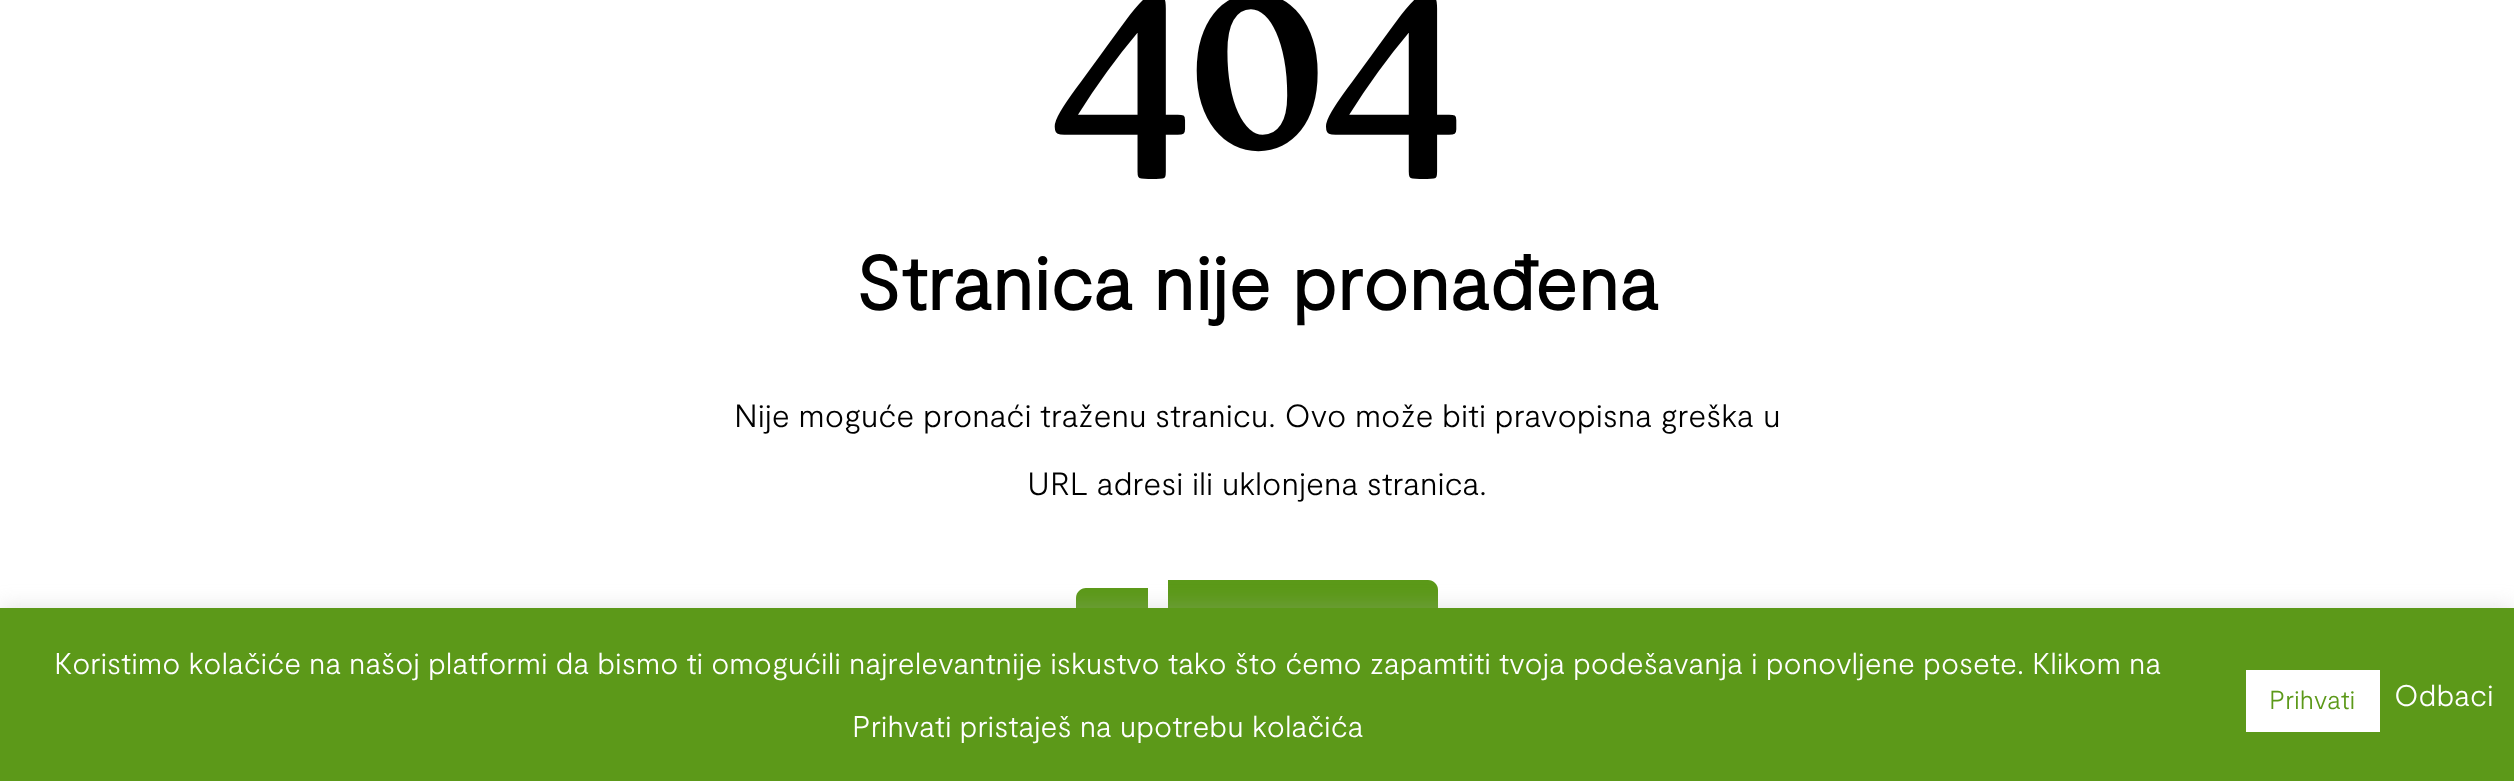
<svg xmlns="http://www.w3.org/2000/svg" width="2514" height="781">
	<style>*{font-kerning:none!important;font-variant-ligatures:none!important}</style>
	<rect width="100%" height="100%" fill="#FFFFFF" />
	<text x="1054" y="148" font-family="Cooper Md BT" font-size="240" fill="#000000">404</text>
	<text x="855" y="310" font-family="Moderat" font-size="76" font-weight="700" fill="#000000">Stranica nije pronađena</text>
	<g font-family="Moderat" font-size="32" font-weight="300" fill="#000000">
		<text x="734" y="427">Nije moguće pronaći traženu</text>
		<text x="1155" y="427">stranicu. Ovo može</text>
		<text x="1442" y="427">biti pravopisna greška</text>
		<text x="1763" y="427">u</text>
		<text x="1027" y="495">URL adresi ili uklonjena stranica.</text>
	</g>
	<path d="M1086 588H1148V680H1086C1080.5 680 1076 675.5 1076 670V598C1076 592.5 1080.5 588 1086 588Z" fill="#5B9918" />
	<path d="M1168 580H1428C1433.5 580 1438 584.5 1438 590V668C1438 673.5 1433.5 678 1428 678H1168Z" fill="#5B9918" />
	<rect x="0" y="606" width="2514" height="174" fill="#ACABAB" fill-opacity="0.3" filter="blur(10px)" />
	<rect x="0" y="608" width="2514" height="173" fill="#5C9919" />
	<g font-family="Moderat" font-size="30" font-weight="300" fill="#FFFFFF">
		<text x="54" y="674">Koristimo kolačiće</text>
		<text x="309" y="674">na našoj platformi da bismo ti omogućili</text>
		<text x="849" y="674">najrelevantnije iskustvo</text>
		<text x="1168" y="674">tako što ćemo zapamtiti tvoja podešavanja</text>
		<text x="1751" y="674">i ponovljene posete.</text>
		<text x="2032" y="674">Klikom na</text>
		<text x="852" y="737">Prihvati pristaješ na upotrebu</text>
		<text x="1252" y="737">kolačića</text>
	</g>
	<rect x="2246" y="670" width="134" height="62" fill="#FFFFFF" />
	<text x="2269" y="709" font-family="Moderat" font-size="26" font-weight="300" fill="#5C9919">Prihvati</text>
	<text x="2394" y="706" font-family="Moderat" font-size="30" font-weight="300" fill="#FFFFFF">Odbaci</text>
</svg>
